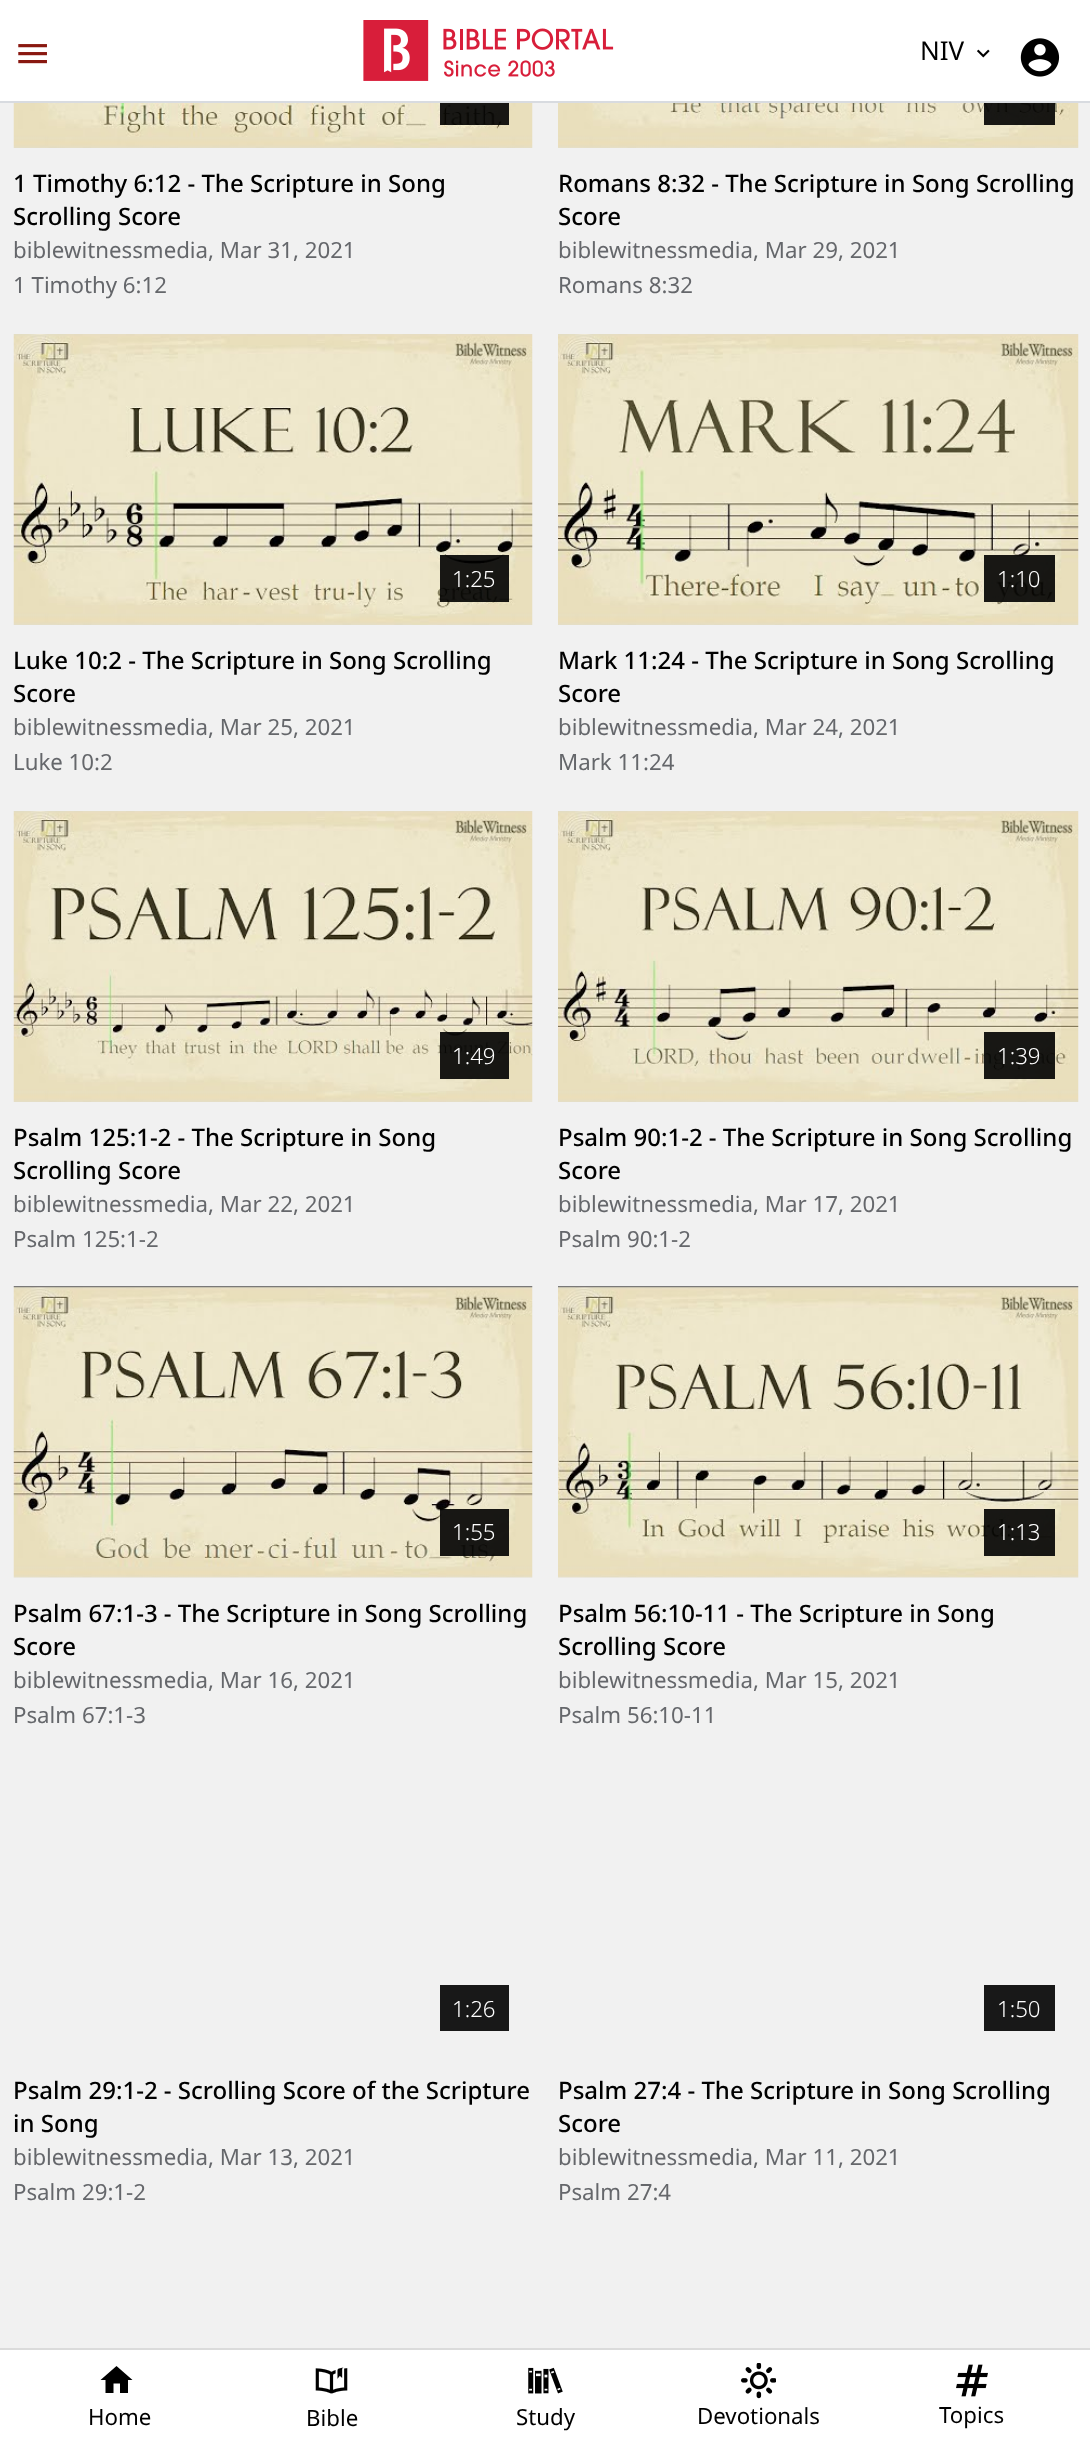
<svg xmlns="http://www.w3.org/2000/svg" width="1090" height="2446">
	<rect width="100%" height="100%" fill="#F1F1F1" />
	<rect x="0" y="0" width="1090" height="101" fill="#FFFFFF" />
	<rect x="0" y="101" width="1090" height="2" fill="#D8DBE0" />
	<image x="18" y="44" width="29" height="20" href="assets/img1.png" />
	<image x="363" y="20" width="251" height="61" href="assets/img2.png" />
	<text x="920" y="60" font-family="Noto Sans" font-size="26" fill="#000000">NIV</text>
	<image x="977" y="49" width="13" height="9" href="assets/img3.png" />
	<image x="1020" y="38" width="40" height="39" href="assets/img4.png" />
	<image x="13" y="103" width="520" height="45" href="assets/img5.png" />
	<rect x="440" y="103" width="69" height="22" fill="#000000" fill-opacity="0.9" />
	<g font-family="Noto Sans" font-size="24" font-weight="500" fill="#000000">
		<text x="13" y="192">1 Timothy 6:12 - The Scripture in Song</text>
		<text x="13" y="225">Scrolling Score</text>
	</g>
	<g font-family="Noto Sans" font-size="22.25" fill="#65676B">
		<text x="13" y="258">biblewitnessmedia, Mar 31, 2021</text>
		<text x="13" y="293">1 Timothy 6:12</text>
	</g>
	<image x="558" y="103" width="521" height="45" href="assets/img6.png" />
	<rect x="984" y="103" width="71" height="22" fill="#000000" fill-opacity="0.9" />
	<g font-family="Noto Sans" font-size="24" font-weight="500" fill="#000000">
		<text x="558" y="192">Romans 8:32 - The Scripture in Song Scrolling</text>
		<text x="558" y="225">Score</text>
	</g>
	<g font-family="Noto Sans" font-size="22.25" fill="#65676B">
		<text x="558" y="258">biblewitnessmedia, Mar 29, 2021</text>
		<text x="558" y="293">Romans 8:32</text>
	</g>
	<image x="13" y="334" width="520" height="291" href="assets/img7.png" />
	<rect x="440" y="555" width="69" height="47" fill="#000000" fill-opacity="0.9" />
	<text x="452" y="587" font-family="Noto Sans" font-size="22.25" font-weight="300" fill="#FFFFFF">1:25</text>
	<g font-family="Noto Sans" font-size="24" font-weight="500" fill="#000000">
		<text x="13" y="669">Luke 10:2 - The Scripture in Song Scrolling</text>
		<text x="13" y="702">Score</text>
	</g>
	<g font-family="Noto Sans" font-size="22.25" fill="#65676B">
		<text x="13" y="735">biblewitnessmedia, Mar 25, 2021</text>
		<text x="13" y="770">Luke 10:2</text>
	</g>
	<image x="558" y="334" width="521" height="291" href="assets/img8.png" />
	<rect x="984" y="555" width="71" height="47" fill="#000000" fill-opacity="0.9" />
	<text x="997" y="587" font-family="Noto Sans" font-size="22.25" font-weight="300" fill="#FFFFFF">1:10</text>
	<g font-family="Noto Sans" font-size="24" font-weight="500" fill="#000000">
		<text x="558" y="669">Mark 11:24 - The Scripture in Song Scrolling</text>
		<text x="558" y="702">Score</text>
	</g>
	<g font-family="Noto Sans" font-size="22.25" fill="#65676B">
		<text x="558" y="735">biblewitnessmedia, Mar 24, 2021</text>
		<text x="558" y="770">Mark 11:24</text>
	</g>
	<image x="13" y="811" width="520" height="291" href="assets/img9.png" />
	<rect x="440" y="1032" width="69" height="47" fill="#000000" fill-opacity="0.9" />
	<text x="452" y="1064" font-family="Noto Sans" font-size="22.25" font-weight="300" fill="#FFFFFF">1:49</text>
	<g font-family="Noto Sans" font-size="24" font-weight="500" fill="#000000">
		<text x="13" y="1146">Psalm 125:1-2 - The Scripture in Song</text>
		<text x="13" y="1179">Scrolling Score</text>
	</g>
	<g font-family="Noto Sans" font-size="22.25" fill="#65676B">
		<text x="13" y="1212">biblewitnessmedia, Mar 22, 2021</text>
		<text x="13" y="1247">Psalm 125:1-2</text>
	</g>
	<image x="558" y="811" width="521" height="291" href="assets/img10.png" />
	<rect x="984" y="1032" width="71" height="47" fill="#000000" fill-opacity="0.9" />
	<text x="997" y="1064" font-family="Noto Sans" font-size="22.25" font-weight="300" fill="#FFFFFF">1:39</text>
	<g font-family="Noto Sans" font-size="24" font-weight="500" fill="#000000">
		<text x="558" y="1146">Psalm 90:1-2 - The Scripture in Song Scrolling</text>
		<text x="558" y="1179">Score</text>
	</g>
	<g font-family="Noto Sans" font-size="22.25" fill="#65676B">
		<text x="558" y="1212">biblewitnessmedia, Mar 17, 2021</text>
		<text x="558" y="1247">Psalm 90:1-2</text>
	</g>
	<image x="13" y="1286" width="520" height="292" href="assets/img11.png" />
	<rect x="440" y="1509" width="69" height="47" fill="#000000" fill-opacity="0.9" />
	<text x="452" y="1540" font-family="Noto Sans" font-size="22.25" font-weight="300" fill="#FFFFFF">1:55</text>
	<g font-family="Noto Sans" font-size="24" font-weight="500" fill="#000000">
		<text x="13" y="1622">Psalm 67:1-3 - The Scripture in Song Scrolling</text>
		<text x="13" y="1655">Score</text>
	</g>
	<g font-family="Noto Sans" font-size="22.25" fill="#65676B">
		<text x="13" y="1688">biblewitnessmedia, Mar 16, 2021</text>
		<text x="13" y="1723">Psalm 67:1-3</text>
	</g>
	<image x="558" y="1286" width="521" height="292" href="assets/img12.png" />
	<rect x="984" y="1509" width="71" height="47" fill="#000000" fill-opacity="0.9" />
	<text x="997" y="1540" font-family="Noto Sans" font-size="22.25" font-weight="300" fill="#FFFFFF">1:13</text>
	<g font-family="Noto Sans" font-size="24" font-weight="500" fill="#000000">
		<text x="558" y="1622">Psalm 56:10-11 - The Scripture in Song</text>
		<text x="558" y="1655">Scrolling Score</text>
	</g>
	<g font-family="Noto Sans" font-size="22.25" fill="#65676B">
		<text x="558" y="1688">biblewitnessmedia, Mar 15, 2021</text>
		<text x="558" y="1723">Psalm 56:10-11</text>
	</g>
	<rect x="440" y="1985" width="69" height="46" fill="#181818" />
	<text x="452" y="2017" font-family="Noto Sans" font-size="22.25" font-weight="300" fill="#FFFFFF">1:26</text>
	<g font-family="Noto Sans" font-size="24" font-weight="500" fill="#000000">
		<text x="13" y="2099">Psalm 29:1-2 - Scrolling Score of the Scripture</text>
		<text x="13" y="2132">in Song</text>
	</g>
	<g font-family="Noto Sans" font-size="22.25" fill="#65676B">
		<text x="13" y="2165">biblewitnessmedia, Mar 13, 2021</text>
		<text x="13" y="2200">Psalm 29:1-2</text>
	</g>
	<rect x="984" y="1985" width="71" height="46" fill="#181818" />
	<text x="997" y="2017" font-family="Noto Sans" font-size="22.25" font-weight="300" fill="#FFFFFF">1:50</text>
	<g font-family="Noto Sans" font-size="24" font-weight="500" fill="#000000">
		<text x="558" y="2099">Psalm 27:4 - The Scripture in Song Scrolling</text>
		<text x="558" y="2132">Score</text>
	</g>
	<g font-family="Noto Sans" font-size="22.25" fill="#65676B">
		<text x="558" y="2165">biblewitnessmedia, Mar 11, 2021</text>
		<text x="558" y="2200">Psalm 27:4</text>
	</g>
	<rect x="0" y="2350" width="1090" height="96" fill="#FFFFFF" />
	<rect x="0" y="2348" width="1090" height="2" fill="#DBDBDB" />
	<path d="M113.5 2393V2383.5H120V2393H128V2380H132.5L116.5 2366L100.5 2380H105.5V2393Z" fill="#000000" />
	<text x="88" y="2425" font-family="Noto Sans" font-size="22.25" fill="#000000">Home</text>
	<image x="315" y="2367" width="33" height="27" href="assets/img13.png" />
	<text x="306" y="2426" font-family="Noto Sans" font-size="22.25" fill="#000000">Bible</text>
	<image x="528" y="2367" width="35" height="27" href="assets/img14.png" />
	<text x="516" y="2425" font-family="Noto Sans" font-size="22.25" fill="#000000">Study</text>
	<image x="741" y="2363" width="35" height="36" href="assets/img15.png" />
	<text x="697" y="2424" font-family="Noto Sans" font-size="22.25" fill="#000000">Devotionals</text>
	<image x="956" y="2364" width="32" height="33" href="assets/img16.png" />
	<text x="939" y="2423" font-family="Noto Sans" font-size="22.25" fill="#000000">Topics</text>
</svg>
